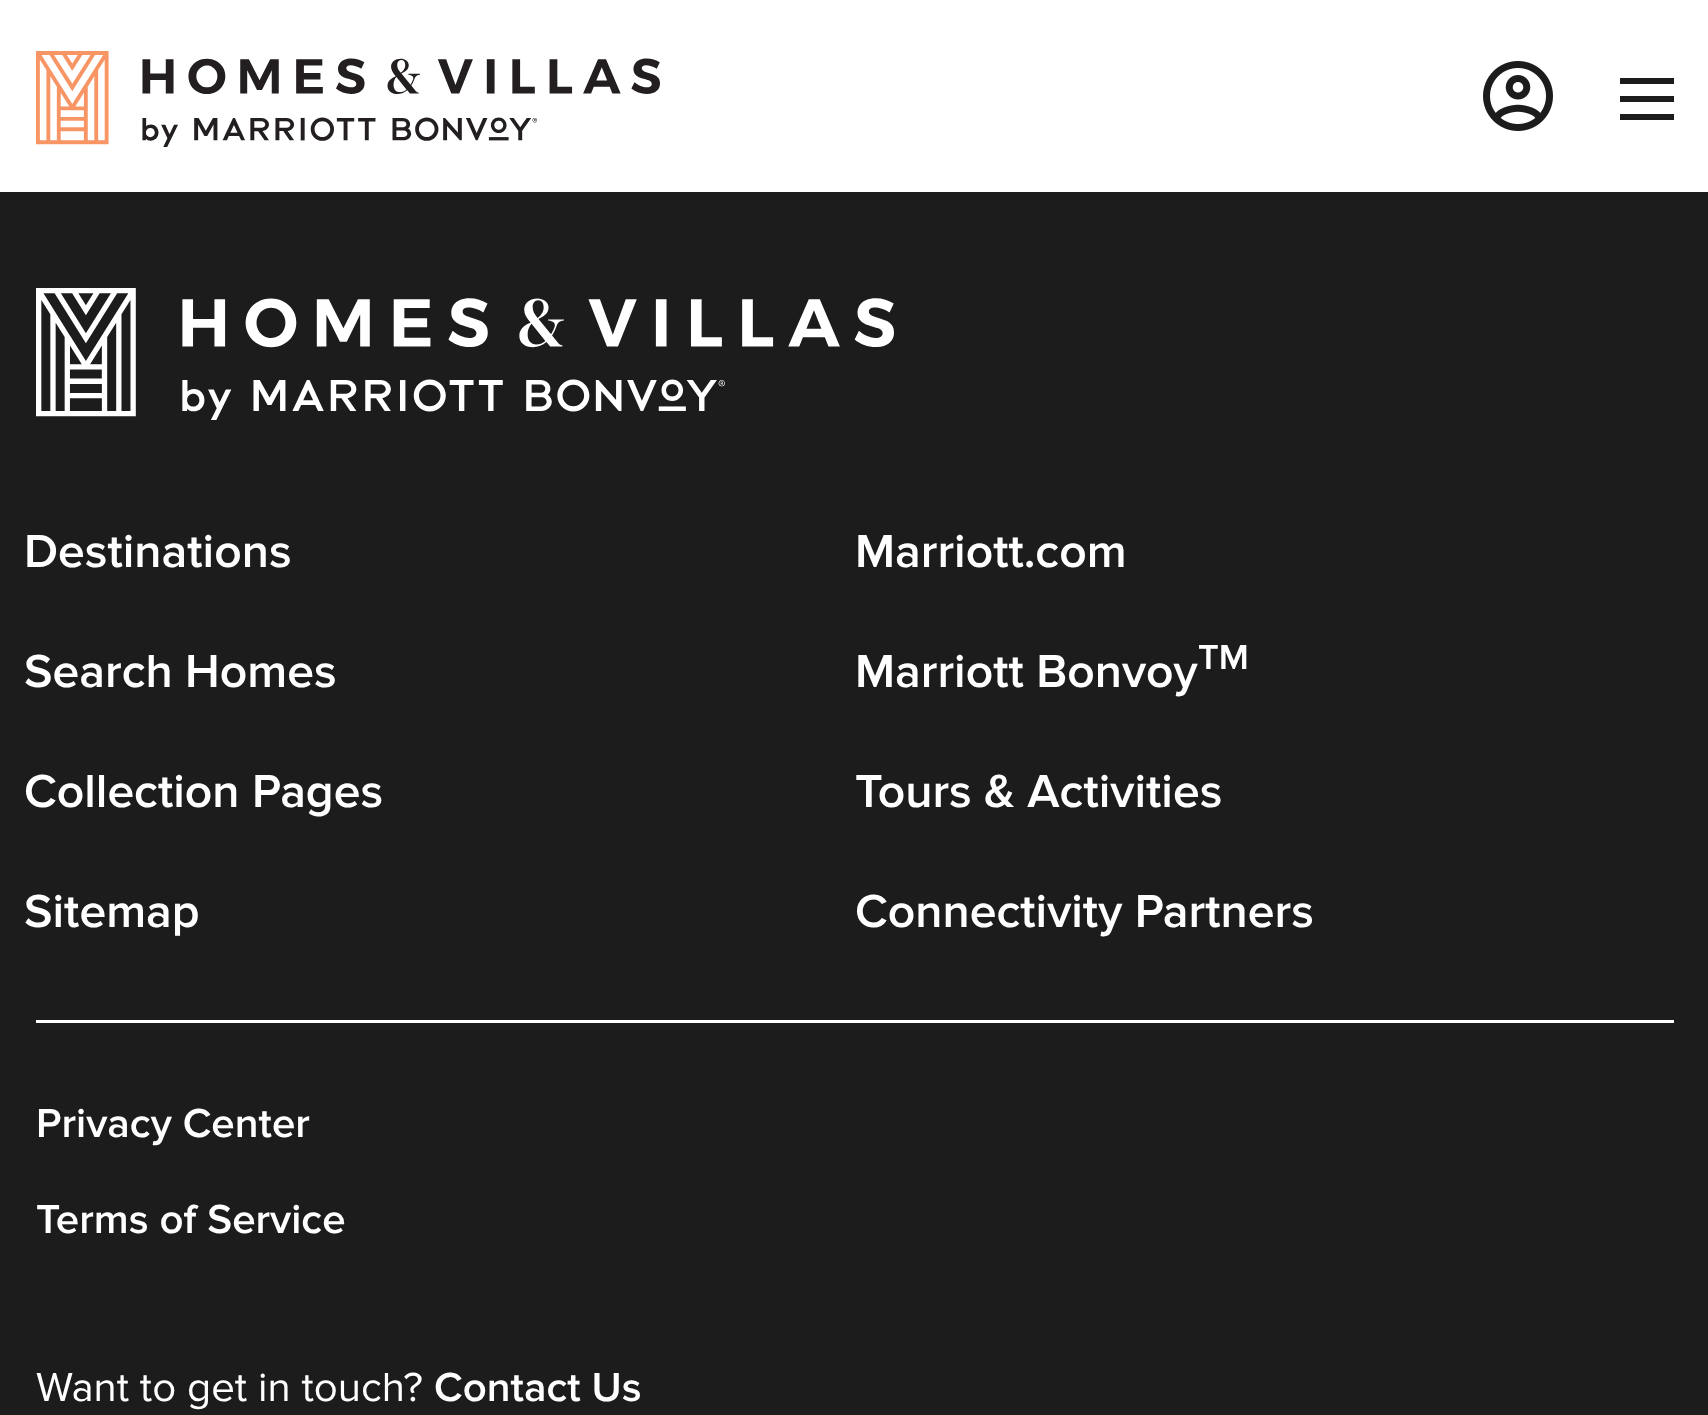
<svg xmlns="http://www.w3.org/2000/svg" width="1708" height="1415">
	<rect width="100%" height="100%" fill="#FFFFFF" />
	<image x="36" y="51" width="624" height="96" href="assets/img1.png" />
	<image x="1483" y="61" width="70" height="70" href="assets/img2.png" />
	<rect x="1620" y="78" width="54" height="6" fill="#1C1C1C" />
	<rect x="1620" y="96" width="54" height="6" fill="#1C1C1C" />
	<rect x="1620" y="114" width="54" height="6" fill="#1C1C1C" />
	<rect x="0" y="192" width="1708" height="1223" fill="#1C1C1C" />
	<image x="36" y="288" width="858" height="132" href="assets/img3.png" />
	<g font-family="Proxima Nova" font-size="48" font-weight="600" fill="#FFFFFF">
		<text x="24" y="567">Destinations</text>
		<text x="24" y="687">Search Homes</text>
		<text x="24" y="807">Collection Pages</text>
		<text x="24" y="927">Sitemap</text>
		<text x="855" y="567">Marriott.com</text>
		<text x="855" y="687">Marriott Bonvoy</text>
	</g>
	<text x="1198" y="669" font-family="Proxima Nova" font-size="36" font-weight="600" fill="#FFFFFF">TM</text>
	<g font-family="Proxima Nova" font-size="48" font-weight="600" fill="#FFFFFF">
		<text x="855" y="807">Tours &amp; Activities</text>
		<text x="855" y="927">Connectivity Partners</text>
	</g>
	<rect x="36" y="1020" width="1638" height="3" fill="#FFFFFF" />
	<g font-family="Proxima Nova" font-size="42" font-weight="600" fill="#FFFFFF">
		<text x="36" y="1137">Privacy Center</text>
		<text x="36" y="1233">Terms of Service</text>
	</g>
	<text x="36" y="1401" font-family="Proxima Nova" font-size="42" fill="#FFFFFF">Want to get in touch?</text>
	<text x="434" y="1401" font-family="Proxima Nova" font-size="42" font-weight="600" fill="#FFFFFF">Contact Us</text>
</svg>
